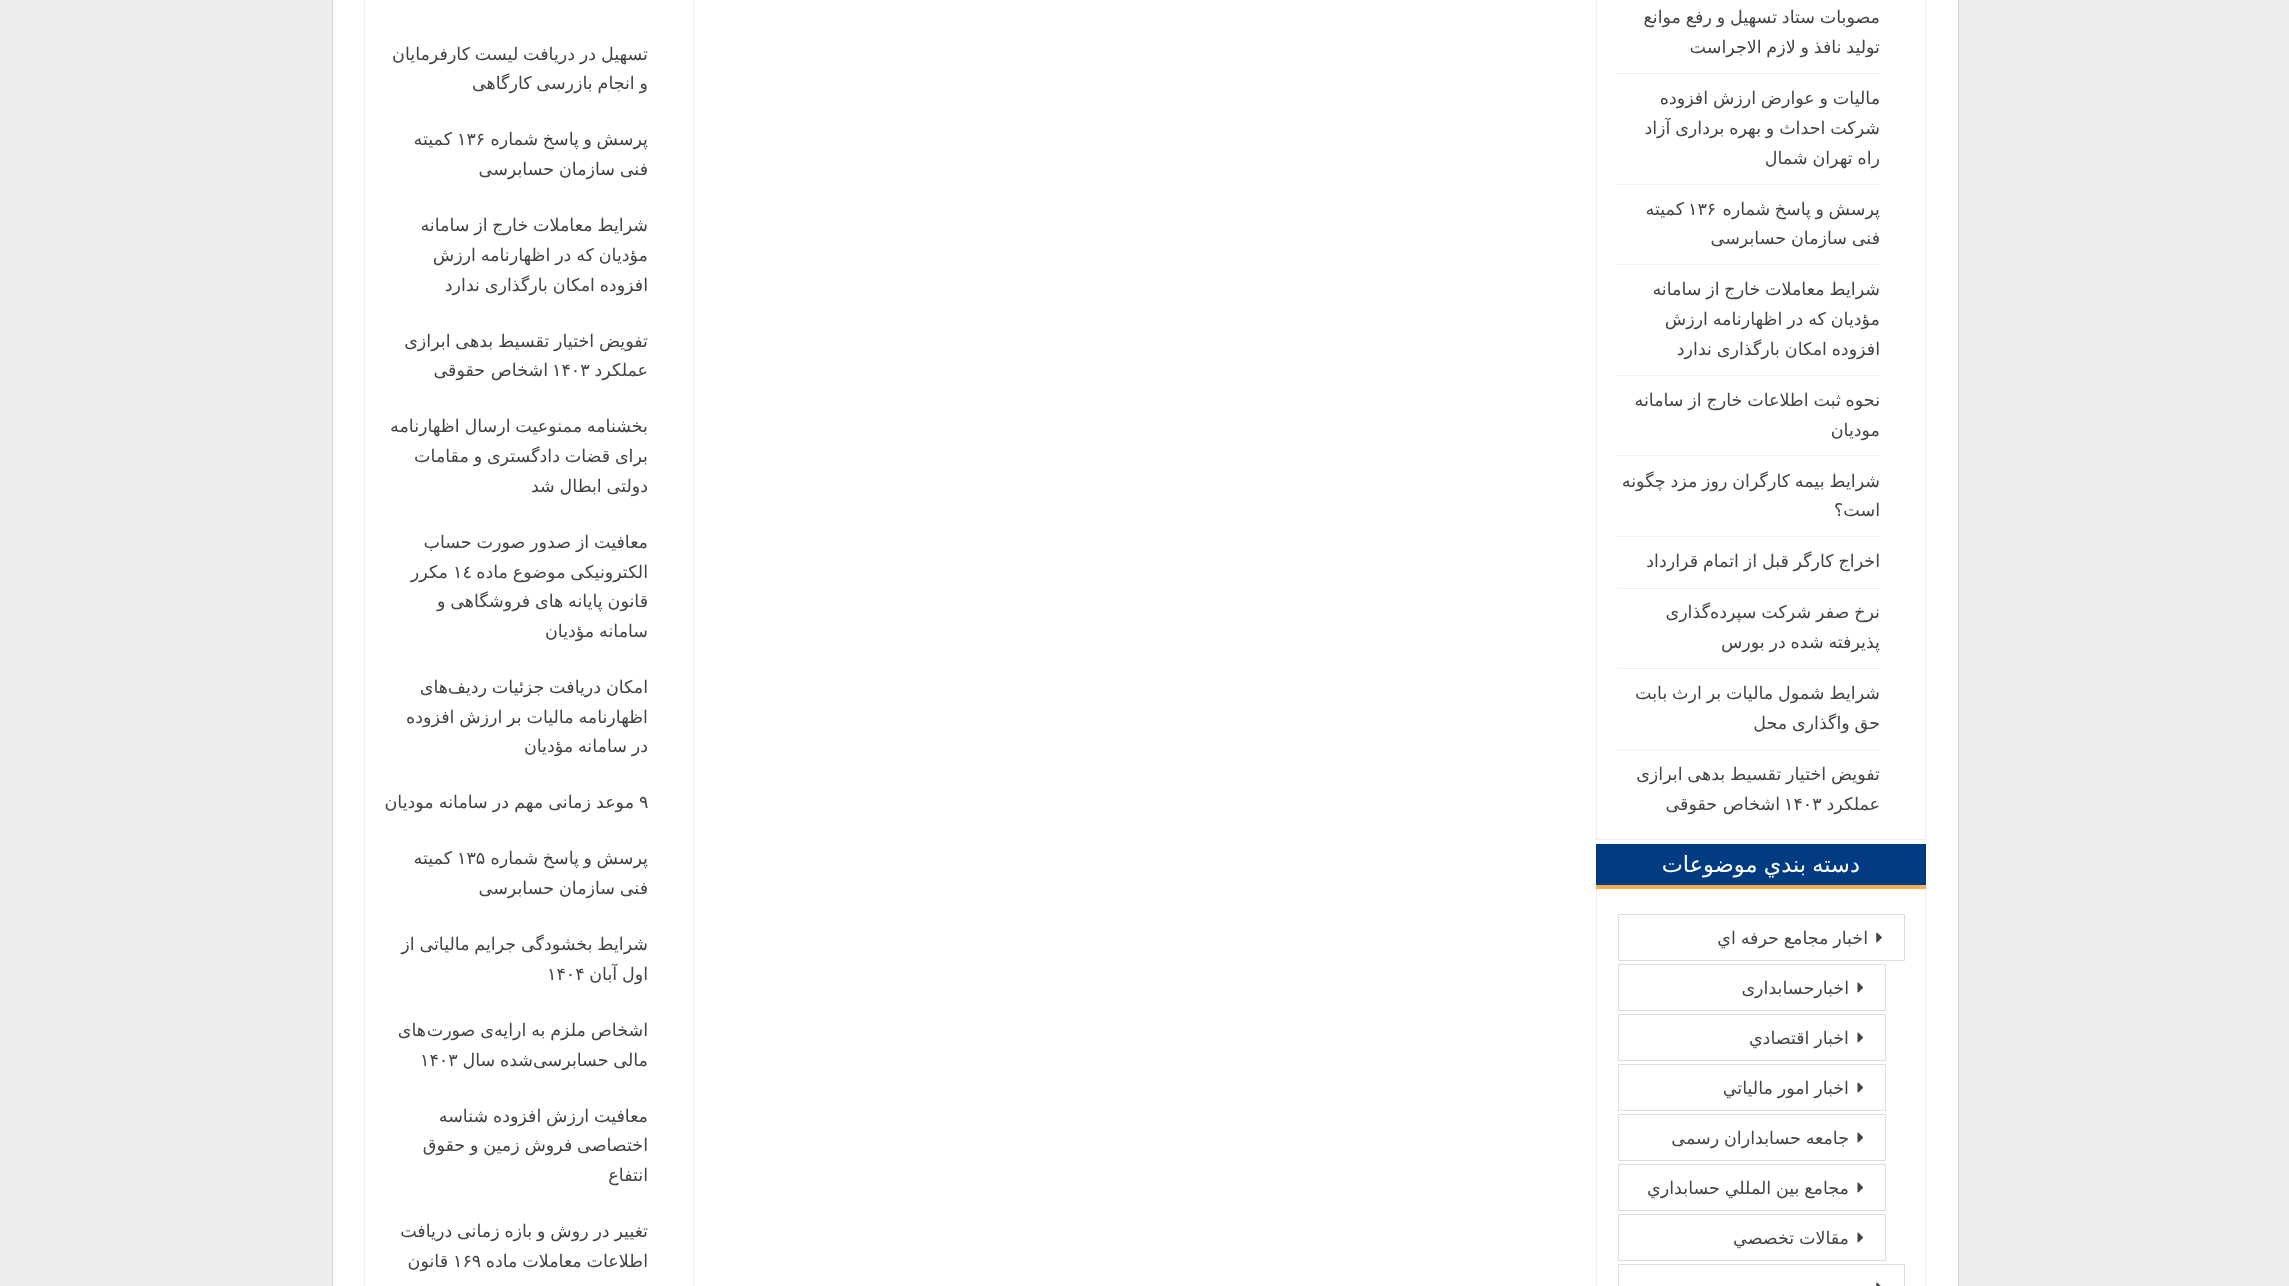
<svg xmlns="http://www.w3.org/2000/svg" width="2289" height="1286">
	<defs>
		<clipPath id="clip1"><rect x="385" y="40" width="263" height="59" /></clipPath>
		<clipPath id="clip2"><rect x="385" y="211" width="263" height="89" /></clipPath>
		<clipPath id="clip3"><rect x="385" y="326" width="263" height="60" /></clipPath>
		<clipPath id="clip4"><rect x="385" y="413" width="263" height="88" /></clipPath>
		<clipPath id="clip5"><rect x="385" y="528" width="263" height="118" /></clipPath>
		<clipPath id="clip6"><rect x="385" y="673" width="263" height="90" /></clipPath>
		<clipPath id="clip7"><rect x="385" y="930" width="263" height="60" /></clipPath>
		<clipPath id="clip8"><rect x="385" y="1016" width="263" height="59" /></clipPath>
		<clipPath id="clip9"><rect x="385" y="1101" width="263" height="90" /></clipPath>
		<clipPath id="clip10"><rect x="385" y="1218" width="263" height="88" /></clipPath>
	</defs>
	<rect width="100%" height="100%" fill="#EEEEEE" />
	<rect x="333" y="-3" width="1625" height="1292" fill="#000000" fill-opacity="0.27" filter="blur(1px)" />
	<rect x="333" y="0" width="1625" height="1286" fill="#FFFFFF" />
	<rect x="1596.5" y="-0.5" width="329" height="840" fill="none" stroke="#EDEDED" />
	<rect x="1618" y="73" width="262" height="1" fill="#F0F0F0" />
	<g font-family="DejaVu Sans" font-size="17.5" direction="rtl" fill="#444444">
		<text x="1880" y="23" word-spacing="-0.75">مصوبات ستاد تسهیل و رفع موانع</text>
		<text x="1880" y="53" word-spacing="-0.75">تولید نافذ و لازم الاجراست</text>
	</g>
	<rect x="1618" y="184" width="262" height="1" fill="#F0F0F0" />
	<g font-family="DejaVu Sans" font-size="17.5" direction="rtl" fill="#444444">
		<text x="1880" y="104" word-spacing="-0.75">مالیات و عوارض ارزش افزوده</text>
		<text x="1880" y="134" word-spacing="-0.75">شرکت احداث و بهره برداری آزاد</text>
		<text x="1880" y="164" word-spacing="-0.75">راه تهران شمال</text>
	</g>
	<rect x="1618" y="264" width="262" height="1" fill="#F0F0F0" />
	<g font-family="DejaVu Sans" font-size="17.5" direction="rtl" fill="#444444">
		<text x="1880" y="215">پرسش</text>
		<text x="1824" y="215" word-spacing="-1">و پاسخ شماره</text>
	</g>
	<text x="1688" y="215" font-family="DejaVu Sans" font-size="17.5" fill="#444444">۱۳۶</text>
	<g font-family="DejaVu Sans" font-size="17.5" direction="rtl" fill="#444444">
		<text x="1684" y="215">کمیته</text>
		<text x="1880" y="244" word-spacing="-0.75">فنی سازمان حسابرسی</text>
	</g>
	<rect x="1618" y="375" width="262" height="1" fill="#F0F0F0" />
	<g font-family="DejaVu Sans" font-size="17.5" direction="rtl" fill="#444444">
		<text x="1880" y="295" word-spacing="-0.75">شرایط معاملات خارج از سامانه</text>
		<text x="1880" y="325" word-spacing="-0.75">مؤدیان که در اظهارنامه ارزش</text>
		<text x="1880" y="355" word-spacing="-0.75">افزوده امکان بارگذاری ندارد</text>
	</g>
	<rect x="1618" y="455" width="262" height="1" fill="#F0F0F0" />
	<g font-family="DejaVu Sans" font-size="17.5" direction="rtl" fill="#444444">
		<text x="1880" y="406" word-spacing="-0.75">نحوه ثبت اطلاعات خارج از سامانه</text>
		<text x="1880" y="436">مودیان</text>
	</g>
	<rect x="1618" y="536" width="262" height="1" fill="#F0F0F0" />
	<g font-family="DejaVu Sans" font-size="17.5" direction="rtl" fill="#444444">
		<text x="1880" y="487" word-spacing="-0.75">شرایط بیمه کارگران روز مزد چگونه</text>
		<text x="1880" y="516">است؟</text>
	</g>
	<rect x="1618" y="588" width="262" height="1" fill="#F0F0F0" />
	<text x="1880" y="567" word-spacing="-0.75" font-family="DejaVu Sans" font-size="17.5" direction="rtl" fill="#444444">اخراج کارگر قبل از اتمام قرارداد</text>
	<rect x="1618" y="668" width="262" height="1" fill="#F0F0F0" />
	<g font-family="DejaVu Sans" font-size="17.5" direction="rtl" fill="#444444">
		<text x="1880" y="618" word-spacing="-0.75">نرخ صفر شرکت سپرده</text>
		<text x="1710" y="618">گذاری</text>
		<text x="1880" y="648" word-spacing="-0.75">پذیرفته شده در بورس</text>
	</g>
	<rect x="1618" y="749" width="262" height="1" fill="#F0F0F0" />
	<g font-family="DejaVu Sans" font-size="17.5" direction="rtl" fill="#444444">
		<text x="1880" y="699" word-spacing="-0.75">شرایط شمول مالیات بر ارث بابت</text>
		<text x="1880" y="729" word-spacing="-0.75">حق واگذاری محل</text>
		<text x="1880" y="780" word-spacing="-0.75">تفویض اختیار تقسیط بدهی ابرازی</text>
		<text x="1880" y="810">عملکرد</text>
	</g>
	<text x="1784" y="810" font-family="DejaVu Sans" font-size="17.5" fill="#444444">١۴٠٣</text>
	<text x="1780" y="810" font-family="DejaVu Sans" font-size="17.5" direction="rtl" fill="#444444">اشخاص حقوقی</text>
	<rect x="1596.5" y="844.5" width="329" height="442" fill="none" stroke="#EDEDED" />
	<rect x="1596" y="844" width="330" height="41" fill="#013B82" />
	<text x="1860" y="872" word-spacing="-1" font-family="DejaVu Sans" font-size="22.5" direction="rtl" fill="#FFFFFF">دسته بندي موضوعات</text>
	<rect x="1596" y="885" width="330" height="4" fill="#F6AF49" />
	<rect x="1618.5" y="914.5" width="286" height="46" fill="none" stroke="#DEDEDE" />
	<image x="1876" y="932" width="6" height="11" href="assets/img1.png" />
	<text x="1868" y="944" word-spacing="-0.75" font-family="DejaVu Sans" font-size="17.5" direction="rtl" fill="#444444">اخبار مجامع حرفه اي</text>
	<rect x="1618.5" y="964.5" width="267" height="46" fill="none" stroke="#DEDEDE" />
	<image x="1857" y="982" width="7" height="11" href="assets/img2.png" />
	<text x="1849" y="994" font-family="DejaVu Sans" font-size="17.5" direction="rtl" fill="#444444">اخبارحسابداری</text>
	<rect x="1618.5" y="1014.5" width="267" height="46" fill="none" stroke="#DEDEDE" />
	<image x="1857" y="1032" width="7" height="11" href="assets/img2.png" />
	<text x="1849" y="1044" word-spacing="-0.75" font-family="DejaVu Sans" font-size="17.5" direction="rtl" fill="#444444">اخبار اقتصادي</text>
	<rect x="1618.5" y="1064.5" width="267" height="46" fill="none" stroke="#DEDEDE" />
	<image x="1857" y="1082" width="7" height="11" href="assets/img2.png" />
	<text x="1849" y="1094" word-spacing="-0.75" font-family="DejaVu Sans" font-size="17.5" direction="rtl" fill="#444444">اخبار امور مالياتي</text>
	<rect x="1618.5" y="1114.5" width="267" height="46" fill="none" stroke="#DEDEDE" />
	<image x="1857" y="1132" width="7" height="11" href="assets/img2.png" />
	<text x="1849" y="1144" word-spacing="-0.75" font-family="DejaVu Sans" font-size="17.5" direction="rtl" fill="#444444">جامعه حسابداران رسمی</text>
	<rect x="1618.5" y="1164.5" width="267" height="46" fill="none" stroke="#DEDEDE" />
	<image x="1857" y="1182" width="7" height="11" href="assets/img2.png" />
	<text x="1849" y="1194" word-spacing="-0.75" font-family="DejaVu Sans" font-size="17.5" direction="rtl" fill="#444444">مجامع بين المللي حسابداري</text>
	<rect x="1618.5" y="1214.5" width="267" height="46" fill="none" stroke="#DEDEDE" />
	<image x="1857" y="1232" width="7" height="11" href="assets/img2.png" />
	<text x="1849" y="1244" word-spacing="-0.75" font-family="DejaVu Sans" font-size="17.5" direction="rtl" fill="#444444">مقالات تخصصي</text>
	<rect x="1618.5" y="1264.5" width="286" height="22" fill="none" stroke="#DEDEDE" />
	<image x="1876" y="1282" width="5" height="4" href="assets/img3.png" />
	<rect x="364.5" y="-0.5" width="329" height="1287" fill="none" stroke="#EDEDED" />
	<g clip-path="url(#clip1)">
		<g font-family="DejaVu Sans" font-size="17.5" direction="rtl" fill="#444444">
			<text x="648" y="60" word-spacing="-0.75">تسهیل در دریافت لیست کارفرمایان</text>
			<text x="648" y="89" word-spacing="-0.75">و انجام بازرسی کارگاهی</text>
		</g>
	</g>
	<g font-family="DejaVu Sans" font-size="17.5" direction="rtl" fill="#444444">
		<text x="648" y="145">پرسش</text>
		<text x="592" y="145" word-spacing="-1">و پاسخ شماره</text>
	</g>
	<text x="457" y="145" font-family="DejaVu Sans" font-size="17.5" fill="#444444">۱۳۶</text>
	<g font-family="DejaVu Sans" font-size="17.5" direction="rtl" fill="#444444">
		<text x="452" y="145">کمیته</text>
		<text x="648" y="175" word-spacing="-0.75">فنی سازمان حسابرسی</text>
	</g>
	<g clip-path="url(#clip2)">
		<g font-family="DejaVu Sans" font-size="17.5" direction="rtl" fill="#444444">
			<text x="648" y="231" word-spacing="-0.75">شرایط معاملات خارج از سامانه</text>
			<text x="648" y="261" word-spacing="-0.75">مؤدیان که در اظهارنامه ارزش</text>
			<text x="648" y="291" word-spacing="-0.75">افزوده امکان بارگذاری ندارد</text>
		</g>
	</g>
	<g clip-path="url(#clip3)">
		<text x="648" y="347" word-spacing="-0.75" font-family="DejaVu Sans" font-size="17.5" direction="rtl" fill="#444444">تفویض اختیار تقسیط بدهی ابرازی</text>
	</g>
	<text x="648" y="376" font-family="DejaVu Sans" font-size="17.5" direction="rtl" fill="#444444">عملکرد</text>
	<text x="552" y="376" font-family="DejaVu Sans" font-size="17.5" fill="#444444">١۴٠٣</text>
	<text x="548" y="376" font-family="DejaVu Sans" font-size="17.5" direction="rtl" fill="#444444">اشخاص حقوقی</text>
	<g clip-path="url(#clip4)">
		<g font-family="DejaVu Sans" font-size="17.5" direction="rtl" fill="#444444">
			<text x="648" y="432" word-spacing="-0.75">بخشنامه ممنوعیت ارسال اظهارنامه</text>
			<text x="648" y="462" word-spacing="-0.75">برای قضات دادگستری و مقامات</text>
			<text x="648" y="492" word-spacing="-0.75">دولتی ابطال شد</text>
		</g>
	</g>
	<g clip-path="url(#clip5)">
		<text x="648" y="548" word-spacing="-0.75" font-family="DejaVu Sans" font-size="17.5" direction="rtl" fill="#444444">معافیت از صدور صورت حساب</text>
	</g>
	<text x="648" y="578" word-spacing="-0.75" font-family="DejaVu Sans" font-size="17.5" direction="rtl" fill="#444444">الکترونیکی موضوع ماده</text>
	<text x="453" y="578" font-family="DejaVu Sans" font-size="17.5" fill="#444444">١٤</text>
	<text x="448" y="578" font-family="DejaVu Sans" font-size="17.5" direction="rtl" fill="#444444">مکرر</text>
	<g clip-path="url(#clip5)">
		<text x="648" y="607" word-spacing="-0.75" font-family="DejaVu Sans" font-size="17.5" direction="rtl" fill="#444444">قانون پایانه های فروشگاهی و</text>
	</g>
	<text x="648" y="637" word-spacing="-0.75" font-family="DejaVu Sans" font-size="17.5" direction="rtl" fill="#444444">سامانه مؤدیان</text>
	<g clip-path="url(#clip6)">
		<text x="648" y="693" word-spacing="-0.75" font-family="DejaVu Sans" font-size="17.5" direction="rtl" fill="#444444">امکان دریافت جزئیات ردیف</text>
	</g>
	<text x="448" y="693" font-family="DejaVu Sans" font-size="17.5" direction="rtl" fill="#444444">های</text>
	<g clip-path="url(#clip6)">
		<g font-family="DejaVu Sans" font-size="17.5" direction="rtl" fill="#444444">
			<text x="648" y="723" word-spacing="-0.75">اظهارنامه مالیات بر ارزش افزوده</text>
			<text x="648" y="752" word-spacing="-0.75">در سامانه مؤدیان</text>
		</g>
	</g>
	<text x="639" y="808" font-family="DejaVu Sans" font-size="17.5" fill="#444444">۹</text>
	<g font-family="DejaVu Sans" font-size="17.5" direction="rtl" fill="#444444">
		<text x="634" y="808" word-spacing="-0.5">موعد زمانی مهم در سامانه مودیان</text>
		<text x="648" y="864">پرسش</text>
		<text x="592" y="864" word-spacing="-1">و پاسخ شماره</text>
	</g>
	<text x="457" y="864" font-family="DejaVu Sans" font-size="17.5" fill="#444444">۱۳۵</text>
	<g font-family="DejaVu Sans" font-size="17.5" direction="rtl" fill="#444444">
		<text x="452" y="864">کمیته</text>
		<text x="648" y="894" word-spacing="-0.75">فنی سازمان حسابرسی</text>
	</g>
	<g clip-path="url(#clip7)">
		<text x="648" y="950" word-spacing="-0.75" font-family="DejaVu Sans" font-size="17.5" direction="rtl" fill="#444444">شرایط بخشودگی جرایم مالیاتی از</text>
	</g>
	<text x="648" y="980" word-spacing="-0.75" font-family="DejaVu Sans" font-size="17.5" direction="rtl" fill="#444444">اول آبان</text>
	<text x="547" y="980" font-family="DejaVu Sans" font-size="17.5" fill="#444444">۱۴۰۴</text>
	<g clip-path="url(#clip8)">
		<text x="648" y="1036" word-spacing="-0.75" font-family="DejaVu Sans" font-size="17.5" direction="rtl" fill="#444444">اشخاص ملزم به ارایه</text>
	</g>
	<g font-family="DejaVu Sans" font-size="17.5" direction="rtl" fill="#444444">
		<text x="494" y="1036" word-spacing="-0.75">ی صورت</text>
		<text x="426" y="1036">های</text>
		<text x="648" y="1066" word-spacing="-0.75">مالی حسابرسی</text>
		<text x="533" y="1066" word-spacing="-0.75">شده سال</text>
	</g>
	<text x="420" y="1066" font-family="DejaVu Sans" font-size="17.5" fill="#444444">۱۴۰۳</text>
	<g clip-path="url(#clip9)">
		<g font-family="DejaVu Sans" font-size="17.5" direction="rtl" fill="#444444">
			<text x="648" y="1122" word-spacing="-0.75">معافیت ارزش افزوده شناسه</text>
			<text x="648" y="1151" word-spacing="-0.75">اختصاصی فروش زمین و حقوق</text>
		</g>
	</g>
	<text x="648" y="1181" font-family="DejaVu Sans" font-size="17.5" direction="rtl" fill="#444444">انتفاع</text>
	<g clip-path="url(#clip10)">
		<text x="648" y="1237" word-spacing="-0.75" font-family="DejaVu Sans" font-size="17.5" direction="rtl" fill="#444444">تغییر در روش و بازه زمانی دریافت</text>
	</g>
	<text x="648" y="1267" word-spacing="-0.75" font-family="DejaVu Sans" font-size="17.5" direction="rtl" fill="#444444">اطلاعات معاملات ماده</text>
	<text x="453" y="1267" font-family="DejaVu Sans" font-size="17.5" fill="#444444">۱۶۹</text>
	<text x="448" y="1267" font-family="DejaVu Sans" font-size="17.5" direction="rtl" fill="#444444">قانون</text>
</svg>
